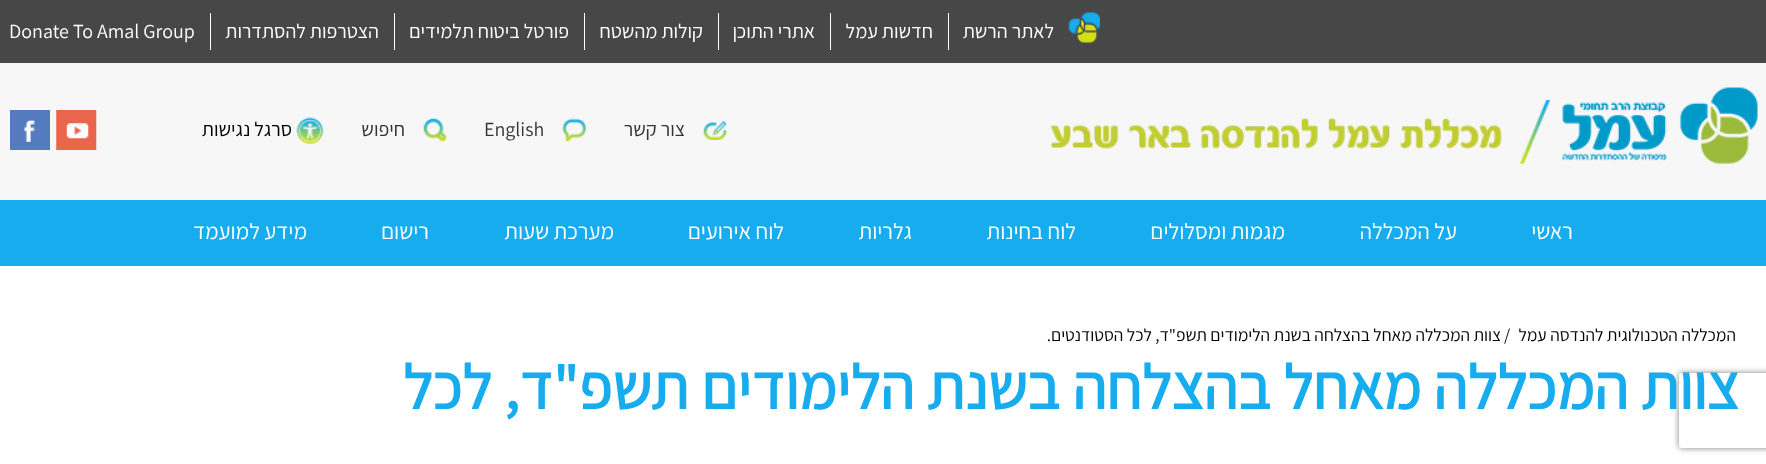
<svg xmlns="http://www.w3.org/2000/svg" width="1766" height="464">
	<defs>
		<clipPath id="clip1"><path d="M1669 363H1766V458H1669ZM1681.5 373H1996.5C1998 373 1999 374 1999 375.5V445.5C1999 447 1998 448 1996.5 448H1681.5C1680 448 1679 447 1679 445.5V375.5C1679 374 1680 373 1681.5 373Z" clip-rule="evenodd" /></clipPath>
	</defs>
	<rect width="100%" height="100%" fill="#FFFFFF" />
	<rect x="0" y="0" width="1766" height="63" fill="#474747" />
	<image x="1068" y="12" width="32" height="31" href="assets/img1.png" />
	<text x="1054" y="38" font-family="Assistant" font-size="20" font-weight="200" direction="rtl" fill="#FFFFFF">לאתר הרשת</text>
	<rect x="948" y="13" width="1" height="37" fill="#FFFFFF" />
	<text x="933" y="38" font-family="Assistant" font-size="20" font-weight="200" direction="rtl" fill="#FFFFFF">חדשות עמל</text>
	<rect x="830" y="13" width="1" height="37" fill="#FFFFFF" />
	<text x="815" y="38" font-family="Assistant" font-size="20" font-weight="200" direction="rtl" fill="#FFFFFF">אתרי התוכן</text>
	<rect x="718" y="13" width="1" height="37" fill="#FFFFFF" />
	<text x="703" y="38" font-family="Assistant" font-size="20" font-weight="200" direction="rtl" fill="#FFFFFF">קולות מהשטח</text>
	<rect x="584" y="13" width="1" height="37" fill="#FFFFFF" />
	<text x="569" y="38" font-family="Assistant" font-size="20" font-weight="200" direction="rtl" fill="#FFFFFF">פורטל ביטוח תלמידים</text>
	<rect x="394" y="13" width="1" height="37" fill="#FFFFFF" />
	<text x="379" y="38" font-family="Assistant" font-size="20" font-weight="200" direction="rtl" fill="#FFFFFF">הצטרפות להסתדרות</text>
	<rect x="210" y="13" width="1" height="37" fill="#FFFFFF" />
	<text x="9" y="38" font-family="Assistant" font-size="20" font-weight="200" fill="#FFFFFF">Donate To Amal Group</text>
	<rect x="0" y="63" width="1766" height="137" fill="#F7F7F7" />
	<image x="1562" y="87" width="196" height="77" href="assets/img2.png" />
	<image x="1520" y="100" width="30" height="64" href="assets/img3.png" />
	<image x="1050" y="118" width="452" height="31" href="assets/img4.png" />
	<image x="703" y="121" width="24" height="19" href="assets/img5.png" />
	<text x="685" y="136" font-family="Assistant" font-size="20" font-weight="200" direction="rtl" fill="#333333">צור קשר</text>
	<image x="562" y="118" width="25" height="24" href="assets/img6.png" />
	<text x="484" y="136" font-family="Assistant" font-size="20" font-weight="200" fill="#333333">English</text>
	<image x="423" y="118" width="24" height="24" href="assets/img7.png" />
	<text x="405" y="136" font-family="Assistant" font-size="20" font-weight="200" direction="rtl" fill="#333333">חיפוש</text>
	<image x="296" y="117" width="28" height="28" href="assets/img8.png" />
	<text x="292" y="136" font-family="Assistant" font-size="20" font-weight="200" direction="rtl" fill="#000000">סרגל נגישות</text>
	<image x="56" y="110" width="41" height="40" href="assets/img9.png" />
	<image x="10" y="110" width="40" height="40" href="assets/img10.png" />
	<rect x="0" y="200" width="1766" height="66" fill="#16ACED" />
	<g font-family="Assistant" font-size="22.5" font-weight="200" direction="rtl" fill="#FFFFFF">
		<text x="1573" y="239">ראשי</text>
		<text x="1457" y="239">על המכללה</text>
		<text x="1285" y="239">מגמות ומסלולים</text>
		<text x="1076" y="239">לוח בחינות</text>
		<text x="912" y="239">גלריות</text>
		<text x="784" y="239">לוח אירועים</text>
		<text x="614" y="239">מערכת שעות</text>
		<text x="429" y="239">רישום</text>
		<text x="307" y="239">מידע למועמד</text>
	</g>
	<text x="1736" y="341" font-family="Assistant" font-size="17.5" font-weight="200" direction="rtl" fill="#000000">המכללה הטכנולוגית להנדסה עמל</text>
	<text x="1504" y="341" font-family="Assistant" font-size="17.5" font-weight="200" fill="#000000">/</text>
	<text x="1501" y="341" font-family="Assistant" font-size="17.5" font-weight="200" direction="rtl" fill="#000000">צוות המכללה מאחל בהצלחה בשנת הלימודים תשפ"ד, לכל הסטודנטים.</text>
	<text x="1739" y="409" font-family="Assistant" font-size="62.5" font-weight="700" direction="rtl" fill="#16ACED">צוות המכללה מאחל בהצלחה בשנת הלימודים תשפ"ד, לכל</text>
	<g clip-path="url(#clip1)">
		<rect x="1679" y="373" width="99" height="75" rx="2.5" fill="#808080" filter="blur(3px)" />
	</g>
</svg>
